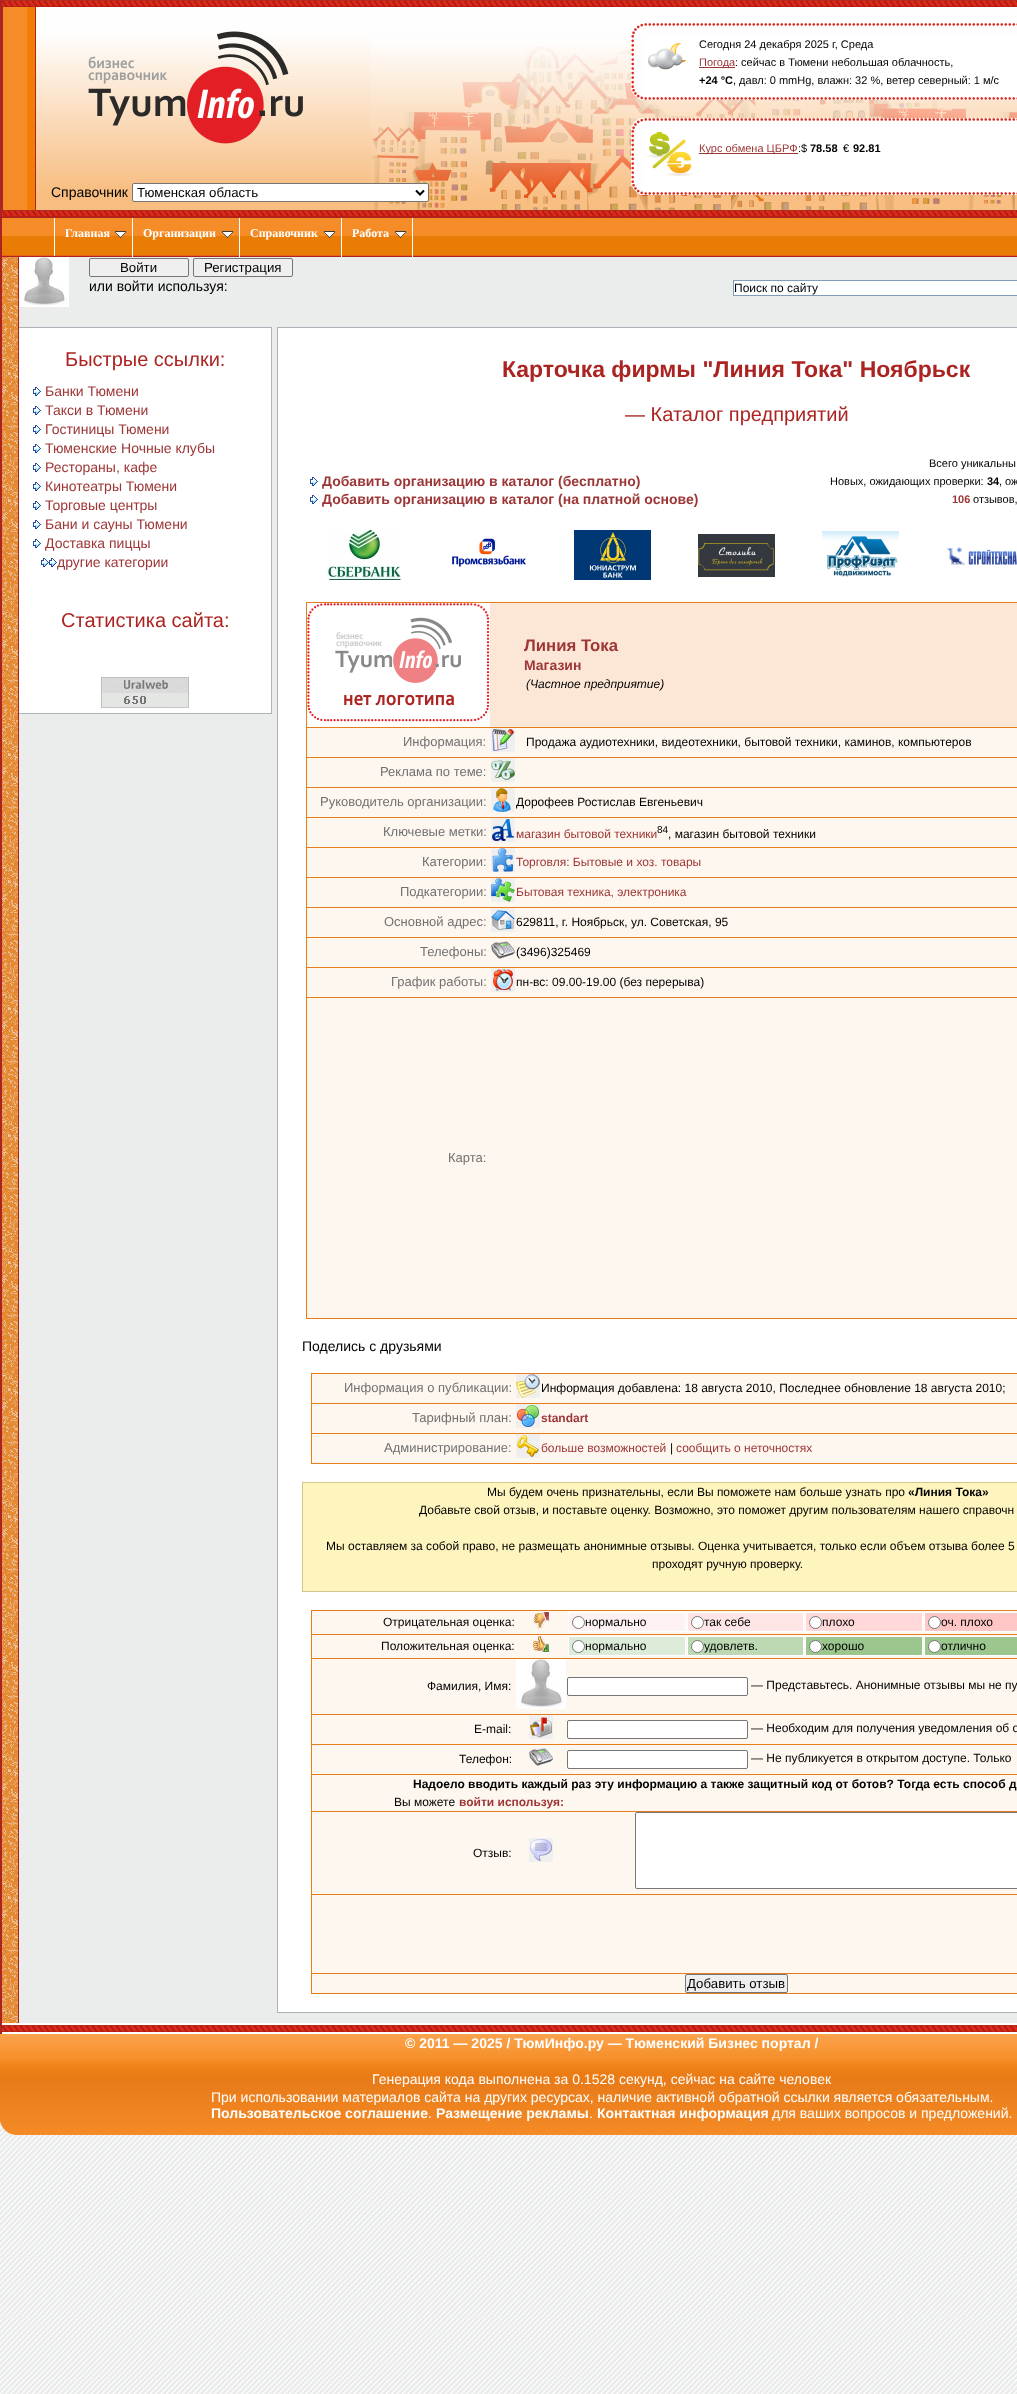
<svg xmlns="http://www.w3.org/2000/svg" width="1017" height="2394">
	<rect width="100%" height="100%" fill="#FFFFFF" />
	<image x="0" y="2124" width="1017" height="270" href="assets/img1.png" />
	<rect x="0" y="0" width="2" height="2034" fill="#AB2421" />
	<image x="36" y="7" width="981" height="203" href="assets/img2.png" />
	<image x="2" y="0" width="1015" height="7" href="assets/img3.png" />
	<image x="3" y="7" width="32" height="203" href="assets/img4.png" />
	<rect x="35" y="7" width="1" height="203" fill="#AB2421" />
	<rect x="2" y="7" width="1" height="203" fill="#AB2421" />
	<image x="371" y="38" width="646" height="172" href="assets/img5.png" />
	<image x="631" y="23" width="13" height="77" href="assets/img6.png" />
	<image x="644" y="23" width="373" height="3" href="assets/img7.png" />
	<rect x="644" y="35" width="373" height="62" fill="#FFFFFF" />
	<image x="648" y="43" width="38" height="27" href="assets/img8.png" />
	<text x="699" y="48" font-family="Liberation Sans" font-size="11" fill="#000000">Сегодня 24 декабря 2025 г, Среда</text>
	<rect x="699" y="67" width="36" height="1" fill="#9D3636" />
	<text x="699" y="66" font-family="Liberation Sans" font-size="11" fill="#9D3636">Погода</text>
	<text x="735" y="66" font-family="Liberation Sans" font-size="11" fill="#000000">: сейчас в Тюмени небольшая облачность,</text>
	<text x="699" y="84" font-family="Liberation Sans" font-size="11" font-weight="700" fill="#000000">+24 °C</text>
	<text x="733" y="84" font-family="Liberation Sans" font-size="11" fill="#000000">, давл: 0 mmHg, влажн: 32 %, ветер северный: 1 м/с</text>
	<image x="644" y="97" width="373" height="3" href="assets/img7.png" />
	<image x="631" y="118" width="13" height="77" href="assets/img9.png" />
	<image x="644" y="118" width="373" height="3" href="assets/img7.png" />
	<rect x="644" y="121" width="373" height="71" fill="#FFFFFF" />
	<image x="646" y="132" width="47" height="44" href="assets/img10.png" />
	<rect x="699" y="153" width="99" height="1" fill="#9D3636" />
	<text x="699" y="152" font-family="Liberation Sans" font-size="11" fill="#9D3636">Курс обмена ЦБРФ</text>
	<text x="798" y="152" font-family="Liberation Sans" font-size="11" fill="#000000">:$</text>
	<text x="810" y="152" font-family="Liberation Sans" font-size="11" font-weight="700" fill="#000000">78.58</text>
	<text x="843" y="152" font-family="Liberation Sans" font-size="11" fill="#000000">€</text>
	<text x="853" y="152" font-family="Liberation Sans" font-size="11" font-weight="700" fill="#000000">92.81</text>
	<image x="644" y="192" width="373" height="3" href="assets/img7.png" />
	<image x="88" y="31" width="215" height="113" href="assets/img11.png" />
	<text x="51" y="197" font-family="Liberation Sans" font-size="14" fill="#000000">Справочник</text>
	<rect x="132.5" y="183.5" width="296" height="18" rx="1.5" fill="#FFFFFF" stroke="#767676" />
	<path d="M416 190.5L420 194.5L424 190.5" fill="none" stroke="#000000" stroke-width="2" />
	<text x="137" y="197" font-family="Liberation Sans" font-size="13.25" fill="#000000">Тюменская область</text>
	<image x="2" y="210" width="1015" height="7" href="assets/img3.png" />
	<rect x="2" y="217" width="1015" height="1" fill="#AB2421" />
	<rect x="2" y="256" width="1015" height="1" fill="#AB2421" />
	<image x="2" y="218" width="1015" height="38" href="assets/img12.png" />
	<rect x="54" y="218" width="1" height="38" fill="#FFFFFF" />
	<rect x="132" y="218" width="1" height="39" fill="#FFFFFF" />
	<text x="65" y="237" font-family="Liberation Serif" font-size="12" font-weight="700" fill="#FFFFFF">Главная</text>
	<image x="115" y="231" width="11" height="7" href="assets/img13.png" />
	<rect x="239" y="218" width="1" height="39" fill="#FFFFFF" />
	<text x="143" y="237" font-family="Liberation Serif" font-size="12" font-weight="700" fill="#FFFFFF">Организации</text>
	<image x="222" y="231" width="11" height="7" href="assets/img13.png" />
	<rect x="341" y="218" width="1" height="39" fill="#FFFFFF" />
	<text x="250" y="237" font-family="Liberation Serif" font-size="12" font-weight="700" fill="#FFFFFF">Справочник</text>
	<image x="324" y="231" width="11" height="7" href="assets/img13.png" />
	<rect x="412" y="218" width="1" height="39" fill="#FFFFFF" />
	<text x="352" y="237" font-family="Liberation Serif" font-size="12" font-weight="700" fill="#FFFFFF">Работа</text>
	<image x="395" y="231" width="11" height="7" href="assets/img13.png" />
	<image x="2" y="257" width="16" height="1766" href="assets/img14.png" />
	<rect x="19" y="257" width="998" height="1766" fill="#EBECEC" />
	<rect x="18" y="257" width="1" height="1766" fill="#AB2421" />
	<image x="19" y="257" width="50" height="50" href="assets/img15.png" />
	<rect x="89.5" y="258.5" width="99" height="18" rx="1.5" fill="#EFEFEF" stroke="#767676" />
	<text x="120" y="272" font-family="Liberation Sans" font-size="13.25" fill="#000000">Войти</text>
	<rect x="193.5" y="258.5" width="99" height="18" rx="1.5" fill="#EFEFEF" stroke="#767676" />
	<text x="204" y="272" font-family="Liberation Sans" font-size="13.25" fill="#000000">Регистрация</text>
	<text x="89" y="291" font-family="Liberation Sans" font-size="14" fill="#000000">или войти используя:</text>
	<rect x="733.5" y="280.5" width="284" height="15" fill="#FFFFFF" stroke="#7F9DB9" />
	<text x="734" y="292" font-family="Liberation Sans" font-size="12" fill="#000000">Поиск по сайту</text>
	<rect x="19" y="328" width="252" height="385" fill="#FFFFFF" />
	<rect x="19" y="327" width="253" height="1" fill="#ACB3B8" />
	<rect x="271" y="327" width="1" height="387" fill="#ACB3B8" />
	<rect x="19" y="713" width="253" height="1" fill="#ACB3B8" />
	<text x="65" y="366" font-family="Liberation Sans" font-size="20" fill="#AB2421">Быстрые ссылки:</text>
	<image x="33" y="387" width="8" height="9" href="assets/img16.png" />
	<text x="45" y="396" font-family="Liberation Sans" font-size="14" fill="#9D3636">Банки Тюмени</text>
	<image x="33" y="406" width="8" height="9" href="assets/img16.png" />
	<text x="45" y="415" font-family="Liberation Sans" font-size="14" fill="#9D3636">Такси в Тюмени</text>
	<image x="33" y="425" width="8" height="9" href="assets/img16.png" />
	<text x="45" y="434" font-family="Liberation Sans" font-size="14" fill="#9D3636">Гостиницы Тюмени</text>
	<image x="33" y="444" width="8" height="9" href="assets/img16.png" />
	<text x="45" y="453" font-family="Liberation Sans" font-size="14" fill="#9D3636">Тюменcкие Ночные клубы</text>
	<image x="33" y="463" width="8" height="9" href="assets/img16.png" />
	<text x="45" y="472" font-family="Liberation Sans" font-size="14" fill="#9D3636">Рестораны, кафе</text>
	<image x="33" y="482" width="8" height="9" href="assets/img16.png" />
	<text x="45" y="491" font-family="Liberation Sans" font-size="14" fill="#9D3636">Кинотеатры Тюмени</text>
	<image x="33" y="501" width="8" height="9" href="assets/img16.png" />
	<text x="45" y="510" font-family="Liberation Sans" font-size="14" fill="#9D3636">Торговые центры</text>
	<image x="33" y="520" width="8" height="9" href="assets/img16.png" />
	<text x="45" y="529" font-family="Liberation Sans" font-size="14" fill="#9D3636">Бани и сауны Тюмени</text>
	<image x="33" y="539" width="8" height="9" href="assets/img16.png" />
	<text x="45" y="548" font-family="Liberation Sans" font-size="14" fill="#9D3636">Доставка пиццы</text>
	<image x="41" y="558" width="8" height="9" href="assets/img16.png" />
	<image x="49" y="558" width="8" height="9" href="assets/img16.png" />
	<text x="57" y="567" font-family="Liberation Sans" font-size="14" fill="#9D3636">другие категории</text>
	<text x="61" y="627" font-family="Liberation Sans" font-size="20" fill="#AB2421">Статистика сайта:</text>
	<image x="101" y="677" width="88" height="31" href="assets/img17.png" />
	<rect x="278" y="328" width="739" height="1684" fill="#FFFFFF" />
	<rect x="277" y="327" width="740" height="1" fill="#ACB3B8" />
	<rect x="277" y="2012" width="740" height="1" fill="#ACB3B8" />
	<rect x="277" y="327" width="1" height="1686" fill="#ACB3B8" />
	<text x="502" y="377" font-family="Liberation Sans" font-size="23" font-weight="700" fill="#AB2421">Карточка фирмы "Линия Тока" Ноябрьск</text>
	<text x="625" y="421" font-family="Liberation Sans" font-size="20" fill="#AB2421">— Каталог предприятий</text>
	<image x="310" y="477" width="8" height="9" href="assets/img16.png" />
	<text x="322" y="486" font-family="Liberation Sans" font-size="14" font-weight="700" fill="#9D3636">Добавить организацию в каталог (бесплатно)</text>
	<image x="310" y="495" width="8" height="9" href="assets/img16.png" />
	<text x="322" y="504" font-family="Liberation Sans" font-size="14" font-weight="700" fill="#9D3636">Добавить организацию в каталог (на платной основе)</text>
	<g font-family="Liberation Sans" font-size="11" fill="#000000">
		<text x="929" y="467">Всего уникальны</text>
		<text x="830" y="485">Новых, ожидающих проверки:</text>
	</g>
	<text x="987" y="485" font-family="Liberation Sans" font-size="11" font-weight="700" fill="#000000">34</text>
	<text x="999" y="485" font-family="Liberation Sans" font-size="11" fill="#000000">, ож</text>
	<text x="952" y="503" font-family="Liberation Sans" font-size="11" font-weight="700" fill="#9D3636">106</text>
	<text x="973" y="503" font-family="Liberation Sans" font-size="11" fill="#000000">отзывов,</text>
	<image x="327" y="530" width="75" height="50" href="assets/img18.png" />
	<image x="452" y="538" width="74" height="29" href="assets/img19.png" />
	<image x="574" y="530" width="77" height="50" href="assets/img20.png" />
	<image x="698" y="534" width="77" height="43" href="assets/img21.png" />
	<image x="822" y="531" width="77" height="46" href="assets/img22.png" />
	<image x="947" y="547" width="70" height="18" href="assets/img23.png" />
	<rect x="306" y="602" width="711" height="717" fill="#E57D1B" />
	<rect x="490" y="603" width="527" height="124" fill="#FCE7D6" />
	<rect x="307" y="603" width="183" height="124" fill="#FFFFFF" />
	<image x="307" y="603" width="183" height="119" href="assets/img24.png" />
	<text x="524" y="651" font-family="Liberation Sans" font-size="16.75" font-weight="700" fill="#9D3636">Линия Тока</text>
	<text x="524" y="670" font-family="Liberation Sans" font-size="14" font-weight="700" fill="#9D3636">Магазин</text>
	<text x="526" y="688" font-family="Liberation Sans" font-size="12" font-style="italic" fill="#000000">(Частное предприятие)</text>
	<rect x="307" y="728" width="710" height="29" fill="#FEF7EF" />
	<text x="403" y="746" font-family="Liberation Sans" font-size="13" fill="#717171">Информация:</text>
	<image x="491" y="728" width="24" height="24" href="assets/img25.png" />
	<text x="526" y="746" font-family="Liberation Sans" font-size="12" fill="#000000">Продажа аудиотехники, видеотехники, бытовой техники, каминов, компьютеров</text>
	<rect x="307" y="758" width="710" height="29" fill="#FEF7EF" />
	<text x="380" y="776" font-family="Liberation Sans" font-size="13" fill="#717171">Реклама по теме:</text>
	<image x="491" y="758" width="24" height="24" href="assets/img26.png" />
	<rect x="307" y="788" width="710" height="29" fill="#FEF7EF" />
	<text x="320" y="806" font-family="Liberation Sans" font-size="13" fill="#717171">Руководитель организации:</text>
	<image x="491" y="788" width="24" height="24" href="assets/img27.png" />
	<text x="516" y="806" font-family="Liberation Sans" font-size="12" fill="#000000">Дорофеев Ростислав Евгеньевич</text>
	<rect x="307" y="818" width="710" height="29" fill="#FEF7EF" />
	<text x="383" y="836" font-family="Liberation Sans" font-size="13" fill="#717171">Ключевые метки:</text>
	<image x="491" y="818" width="24" height="24" href="assets/img28.png" />
	<text x="516" y="838" font-family="Liberation Sans" font-size="12" fill="#9D3636">магазин бытовой техники</text>
	<text x="657" y="833" font-family="Liberation Sans" font-size="10" fill="#000000">84</text>
	<text x="668" y="838" font-family="Liberation Sans" font-size="12" fill="#000000">, магазин бытовой техники</text>
	<rect x="307" y="848" width="710" height="29" fill="#FEF7EF" />
	<text x="422" y="866" font-family="Liberation Sans" font-size="13" fill="#717171">Категории:</text>
	<image x="491" y="848" width="24" height="24" href="assets/img29.png" />
	<text x="516" y="866" font-family="Liberation Sans" font-size="12" fill="#9D3636">Торговля: Бытовые и хоз. товары</text>
	<rect x="307" y="878" width="710" height="29" fill="#FEF7EF" />
	<text x="400" y="896" font-family="Liberation Sans" font-size="13" fill="#717171">Подкатегории:</text>
	<image x="491" y="878" width="24" height="24" href="assets/img30.png" />
	<text x="516" y="896" font-family="Liberation Sans" font-size="12" fill="#9D3636">Бытовая техника, электроника</text>
	<rect x="307" y="908" width="710" height="29" fill="#FEF7EF" />
	<text x="384" y="926" font-family="Liberation Sans" font-size="13" fill="#717171">Основной адрес:</text>
	<image x="491" y="908" width="24" height="24" href="assets/img31.png" />
	<text x="516" y="926" font-family="Liberation Sans" font-size="12" fill="#000000">629811, г. Ноябрьск, ул. Советская, 95</text>
	<rect x="307" y="938" width="710" height="29" fill="#FEF7EF" />
	<text x="420" y="956" font-family="Liberation Sans" font-size="13" fill="#717171">Телефоны:</text>
	<image x="491" y="941" width="24" height="18" href="assets/img32.png" />
	<text x="516" y="956" font-family="Liberation Sans" font-size="12" fill="#000000">(3496)325469</text>
	<rect x="307" y="968" width="710" height="29" fill="#FEF7EF" />
	<text x="391" y="986" font-family="Liberation Sans" font-size="13" fill="#717171">График работы:</text>
	<image x="491" y="968" width="24" height="24" href="assets/img33.png" />
	<text x="516" y="986" font-family="Liberation Sans" font-size="12" fill="#000000">пн-вс: 09.00-19.00 (без перерыва)</text>
	<rect x="307" y="998" width="710" height="320" fill="#FEF7EF" />
	<text x="448" y="1162" font-family="Liberation Sans" font-size="13" fill="#717171">Карта:</text>
	<text x="302" y="1351" font-family="Liberation Sans" font-size="14" fill="#000000">Поделись с друзьями</text>
	<rect x="311" y="1373" width="706" height="91" fill="#E57D1B" />
	<rect x="312" y="1374" width="705" height="29" fill="#FEF7EF" />
	<text x="344" y="1392" font-family="Liberation Sans" font-size="13" fill="#717171">Информация о публикации:</text>
	<image x="516" y="1374" width="24" height="24" href="assets/img34.png" />
	<text x="541" y="1392" font-family="Liberation Sans" font-size="12" fill="#000000">Информация добавлена: 18 августа 2010, Последнее обновление 18 августа 2010;</text>
	<rect x="312" y="1404" width="705" height="29" fill="#FEF7EF" />
	<text x="412" y="1422" font-family="Liberation Sans" font-size="13" fill="#717171">Тарифный план:</text>
	<image x="516" y="1404" width="24" height="24" href="assets/img35.png" />
	<text x="541" y="1422" font-family="Liberation Sans" font-size="12" font-weight="700" fill="#9D3636">standart</text>
	<rect x="312" y="1434" width="705" height="29" fill="#FEF7EF" />
	<text x="384" y="1452" font-family="Liberation Sans" font-size="13" fill="#717171">Администрирование:</text>
	<image x="516" y="1434" width="24" height="24" href="assets/img36.png" />
	<text x="541" y="1452" font-family="Liberation Sans" font-size="12" fill="#9D3636">больше возможностей</text>
	<text x="670" y="1452" font-family="Liberation Sans" font-size="12" fill="#000000">|</text>
	<text x="676" y="1452" font-family="Liberation Sans" font-size="12" fill="#9D3636">сообщить о неточностях</text>
	<rect x="302" y="1482" width="715" height="110" fill="#D1C88E" />
	<rect x="303" y="1483" width="714" height="108" fill="#FEF4BD" />
	<text x="487" y="1496" font-family="Liberation Sans" font-size="12" fill="#000000">Мы будем очень признательны, если Вы поможете нам больше узнать про</text>
	<text x="908" y="1496" font-family="Liberation Sans" font-size="12" font-weight="700" fill="#000000">«Линия Тока»</text>
	<g font-family="Liberation Sans" font-size="12" fill="#000000">
		<text x="419" y="1514">Добавьте свой отзыв, и поставьте оценку. Возможно, это поможет другим пользователям нашего справочн</text>
		<text x="326" y="1550">Мы оставляем за собой право, не размещать анонимные отзывы. Оценка учитывается, только если объем отзыва более 5</text>
		<text x="652" y="1568">проходят ручную проверку.</text>
	</g>
	<rect x="311" y="1610" width="706" height="384" fill="#E57D1B" />
	<rect x="312" y="1611" width="705" height="23" fill="#FEF7EF" />
	<text x="383" y="1626" font-family="Liberation Sans" font-size="12" fill="#000000">Отрицательная оценка:</text>
	<image x="533" y="1611" width="17" height="18" href="assets/img37.png" />
	<rect x="568.5" y="1612.5" width="117" height="19" fill="#FFF2F2" stroke="#FFFFFF" />
	<circle cx="578.5" cy="1622.5" r="6" fill="#FFFFFF" stroke="#767676" />
	<text x="585" y="1626" font-family="Liberation Sans" font-size="12" fill="#000000">нормально</text>
	<rect x="687.5" y="1612.5" width="116" height="19" fill="#FFE5E5" stroke="#FFFFFF" />
	<circle cx="697.5" cy="1622.5" r="6" fill="#FFFFFF" stroke="#767676" />
	<text x="704" y="1626" font-family="Liberation Sans" font-size="12" fill="#000000">так себе</text>
	<rect x="805.5" y="1612.5" width="117" height="19" fill="#FFD9D9" stroke="#FFFFFF" />
	<circle cx="815.5" cy="1622.5" r="6" fill="#FFFFFF" stroke="#767676" />
	<text x="822" y="1626" font-family="Liberation Sans" font-size="12" fill="#000000">плохо</text>
	<rect x="924.5" y="1612.5" width="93" height="19" fill="#FFC6C6" stroke="#FFFFFF" />
	<circle cx="934.5" cy="1622.5" r="6" fill="#FFFFFF" stroke="#767676" />
	<text x="941" y="1626" font-family="Liberation Sans" font-size="12" fill="#000000">оч. плохо</text>
	<rect x="312" y="1635" width="705" height="23" fill="#FEF7EF" />
	<text x="381" y="1650" font-family="Liberation Sans" font-size="12" fill="#000000">Положительная оценка:</text>
	<image x="532" y="1635" width="18" height="18" href="assets/img38.png" />
	<rect x="568.5" y="1636.5" width="117" height="19" fill="#DDECD9" stroke="#FFFFFF" />
	<circle cx="578.5" cy="1646.5" r="6" fill="#FFFFFF" stroke="#767676" />
	<text x="585" y="1650" font-family="Liberation Sans" font-size="12" fill="#000000">нормально</text>
	<rect x="687.5" y="1636.5" width="116" height="19" fill="#BCD9B3" stroke="#FFFFFF" />
	<circle cx="697.5" cy="1646.5" r="6" fill="#FFFFFF" stroke="#767676" />
	<text x="704" y="1650" font-family="Liberation Sans" font-size="12" fill="#000000">удовлетв.</text>
	<rect x="805.5" y="1636.5" width="117" height="19" fill="#9BC68D" stroke="#FFFFFF" />
	<circle cx="815.5" cy="1646.5" r="6" fill="#FFFFFF" stroke="#767676" />
	<text x="822" y="1650" font-family="Liberation Sans" font-size="12" fill="#000000">хорошо</text>
	<rect x="924.5" y="1636.5" width="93" height="19" fill="#9BC68D" stroke="#FFFFFF" />
	<circle cx="934.5" cy="1646.5" r="6" fill="#FFFFFF" stroke="#767676" />
	<text x="941" y="1650" font-family="Liberation Sans" font-size="12" fill="#000000">отлично</text>
	<rect x="312" y="1659" width="705" height="55" fill="#FEF7EF" />
	<text x="427" y="1690" font-family="Liberation Sans" font-size="12" fill="#000000">Фамилия, Имя:</text>
	<image x="516" y="1659" width="50" height="50" href="assets/img15.png" />
	<rect x="567.5" y="1677.5" width="180" height="18" rx="1.5" fill="#FFFFFF" stroke="#767676" />
	<text x="751" y="1689" font-family="Liberation Sans" font-size="12" fill="#000000">— Представьтесь. Анонимные отзывы мы не пу</text>
	<rect x="312" y="1715" width="705" height="29" fill="#FEF7EF" />
	<text x="474" y="1733" font-family="Liberation Sans" font-size="12" fill="#000000">E-mail:</text>
	<image x="529" y="1715" width="24" height="24" href="assets/img39.png" />
	<rect x="567.5" y="1720.5" width="180" height="18" rx="1.5" fill="#FFFFFF" stroke="#767676" />
	<text x="751" y="1732" font-family="Liberation Sans" font-size="12" fill="#000000">— Необходим для получения уведомления об о</text>
	<rect x="312" y="1745" width="705" height="29" fill="#FEF7EF" />
	<text x="459" y="1763" font-family="Liberation Sans" font-size="12" fill="#000000">Телефон:</text>
	<image x="529" y="1748" width="24" height="18" href="assets/img32.png" />
	<rect x="567.5" y="1750.5" width="180" height="18" rx="1.5" fill="#FFFFFF" stroke="#767676" />
	<text x="751" y="1762" font-family="Liberation Sans" font-size="12" fill="#000000">— Не публикуется в открытом доступе. Только</text>
	<rect x="312" y="1775" width="705" height="36" fill="#FEF7EF" />
	<text x="413" y="1788" font-family="Liberation Sans" font-size="12" font-weight="700" fill="#000000">Надоело вводить каждый раз эту информацию а также защитный код от ботов? Тогда есть способ д</text>
	<text x="394" y="1806" font-family="Liberation Sans" font-size="12" fill="#000000">Вы можете</text>
	<text x="459" y="1806" font-family="Liberation Sans" font-size="12" font-weight="700" fill="#9D3636">войти используя:</text>
	<rect x="312" y="1812" width="705" height="82" fill="#FEF7EF" />
	<text x="473" y="1857" font-family="Liberation Sans" font-size="12" fill="#000000">Отзыв:</text>
	<image x="529" y="1838" width="24" height="24" href="assets/img40.png" />
	<rect x="635.5" y="1812.5" width="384" height="76" rx="1.5" fill="#FFFFFF" stroke="#767676" />
	<rect x="312" y="1895" width="705" height="78" fill="#FEF7EF" />
	<rect x="312" y="1974" width="705" height="19" fill="#FEF7EF" />
	<rect x="685.5" y="1974.5" width="102" height="18" rx="1.5" fill="#EFEFEF" stroke="#767676" />
	<text x="687" y="1988" font-family="Liberation Sans" font-size="13.25" fill="#000000">Добавить отзыв</text>
	<image x="2" y="2025" width="1015" height="7" href="assets/img3.png" />
	<image x="0" y="2034" width="18" height="101" href="assets/img41.png" />
	<image x="18" y="2034" width="999" height="101" href="assets/img42.png" />
	<text x="405" y="2048" font-family="Liberation Sans" font-size="14" font-weight="700" fill="#FFFFFF">© 2011 — 2025 / ТюмИнфо.ру — Тюменcкий Бизнес портал /</text>
	<g font-family="Liberation Sans" font-size="14" fill="#FFFFFF">
		<text x="372" y="2084">Генерация кода выполнена за 0.1528 секунд, сейчас на сайте человек</text>
		<text x="211" y="2102">При использовании материалов сайта на других ресурсах, наличие активной обратной ссылки является обязательным.</text>
	</g>
	<text x="211" y="2118" font-family="Liberation Sans" font-size="14" font-weight="700" fill="#FFFFFF">Пользовательское соглашение</text>
	<text x="428" y="2118" font-family="Liberation Sans" font-size="14" fill="#FFFFFF">.</text>
	<text x="436" y="2118" font-family="Liberation Sans" font-size="14" font-weight="700" fill="#FFFFFF">Размещение рекламы</text>
	<text x="589" y="2118" font-family="Liberation Sans" font-size="14" fill="#FFFFFF">.</text>
	<text x="597" y="2118" font-family="Liberation Sans" font-size="14" font-weight="700" fill="#FFFFFF">Контактная информация</text>
	<text x="772" y="2118" font-family="Liberation Sans" font-size="14" fill="#FFFFFF">для ваших вопросов и предложений.</text>
</svg>
